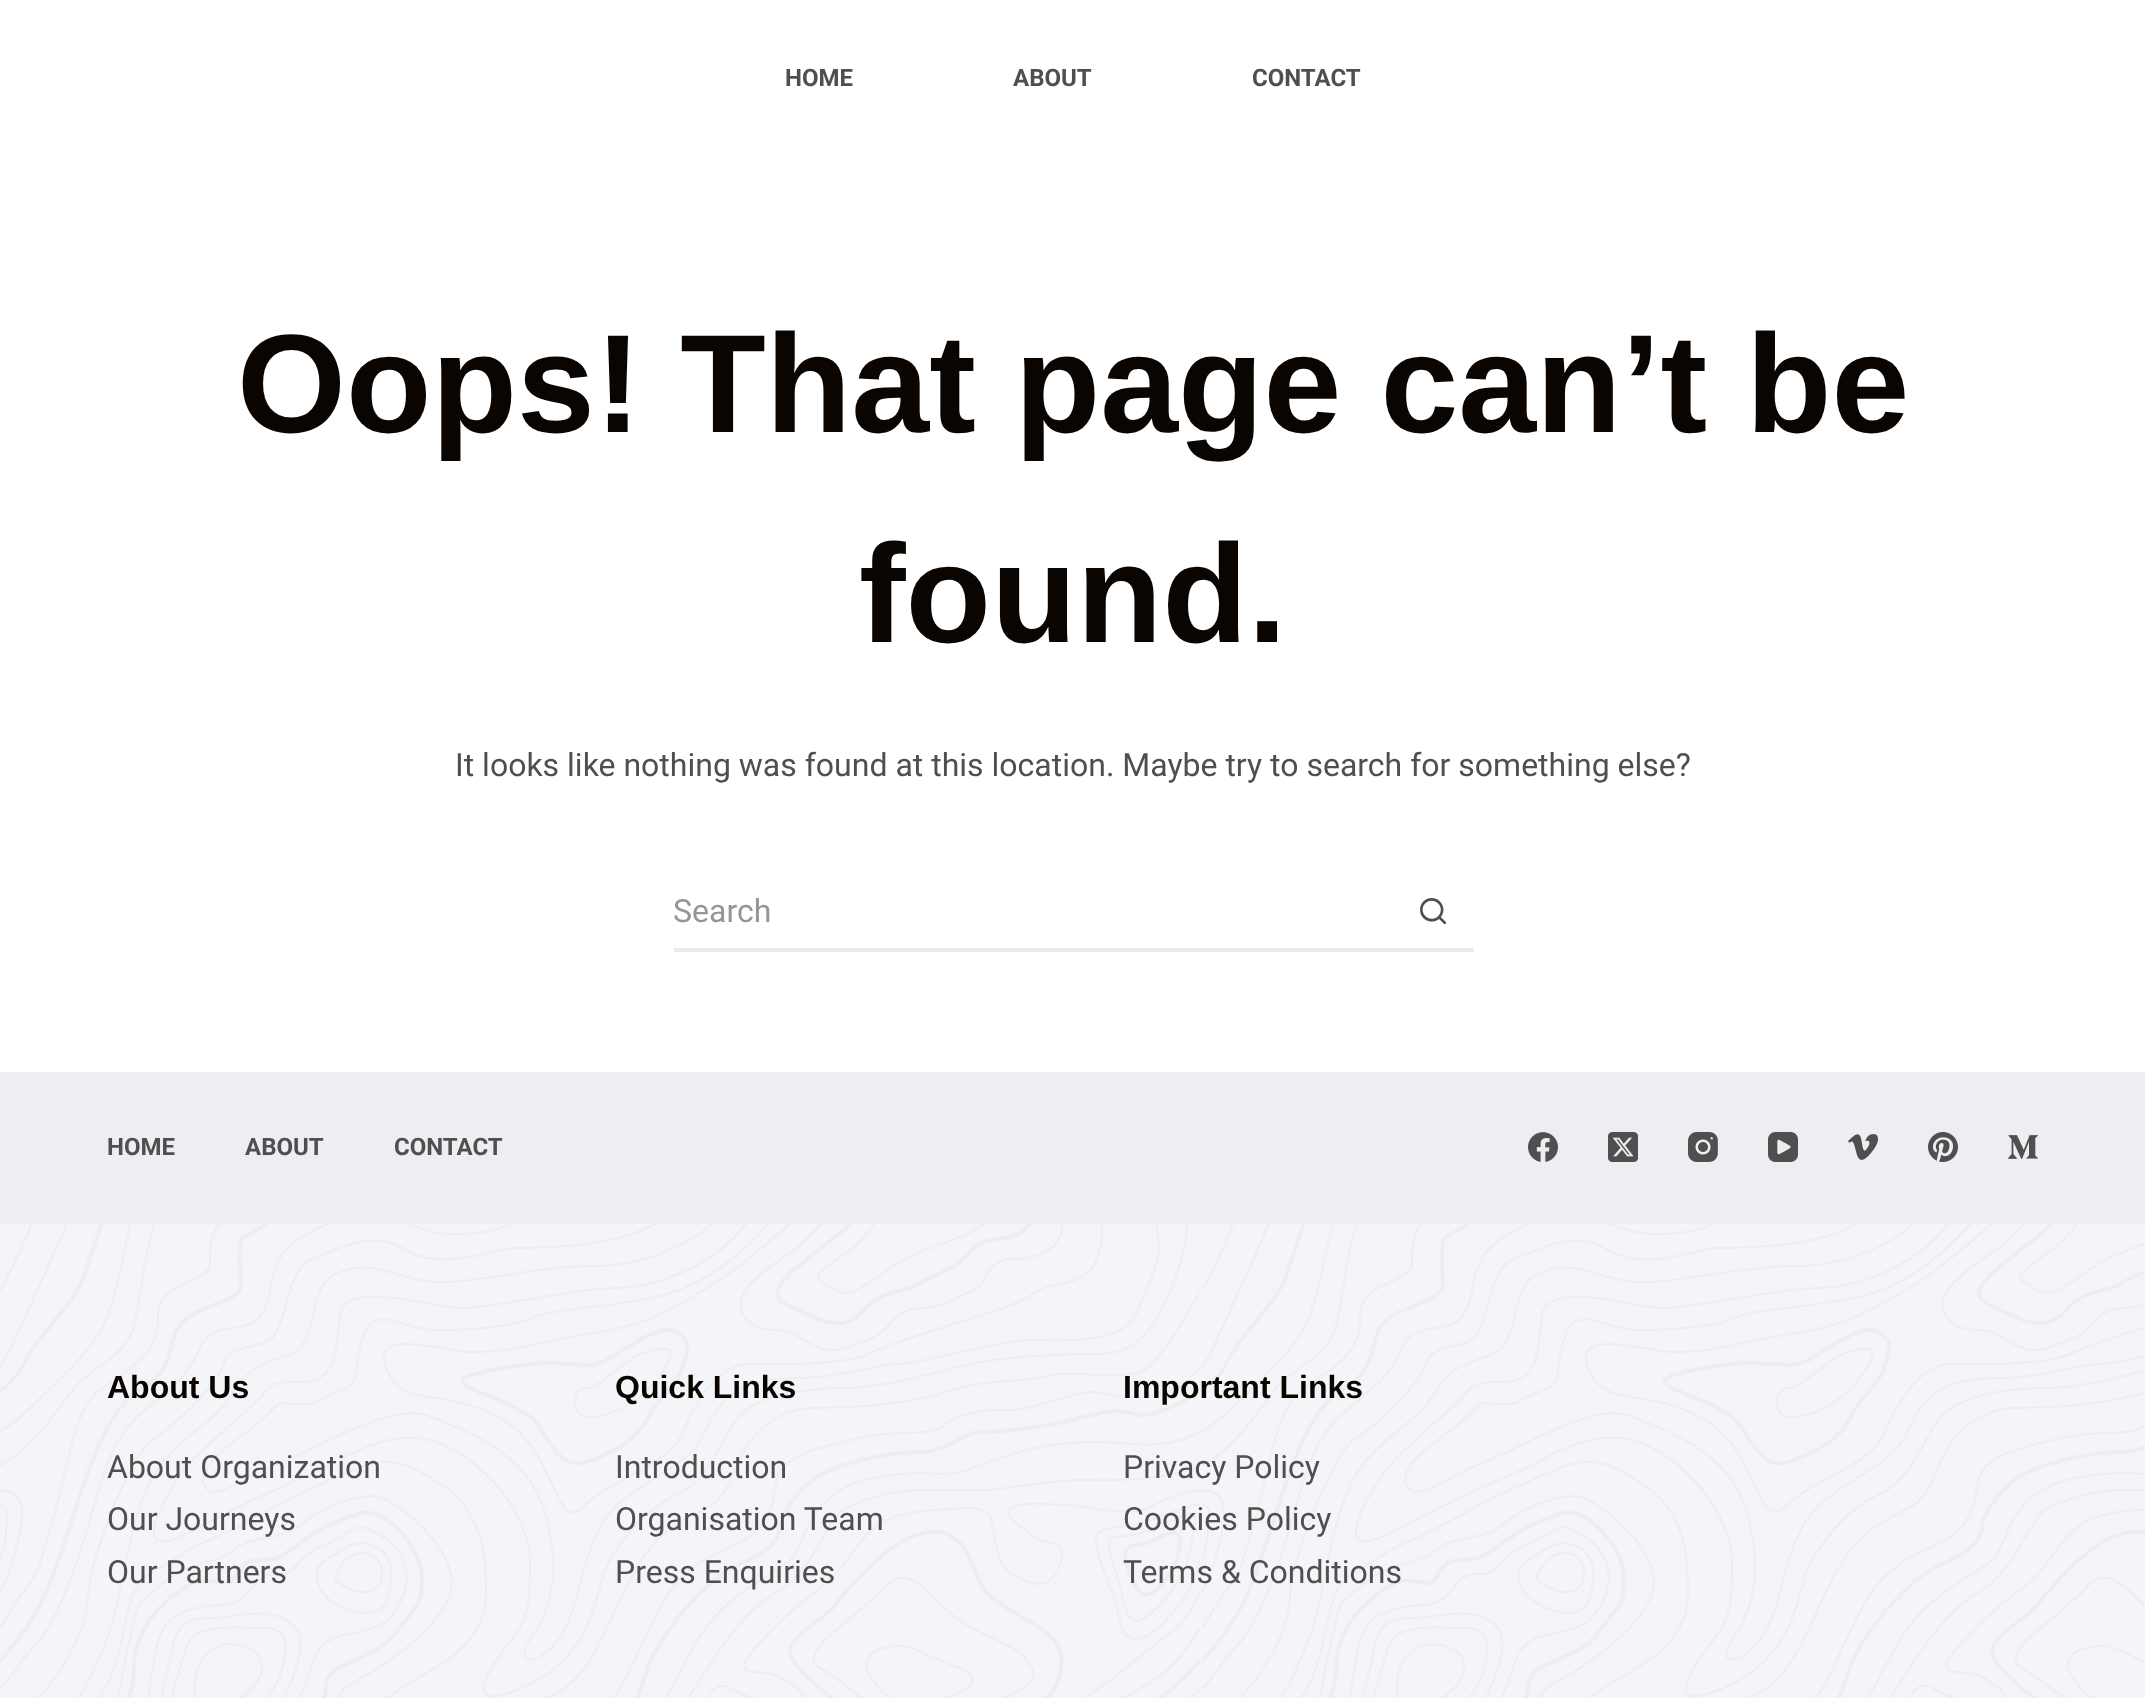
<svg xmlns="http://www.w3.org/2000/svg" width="2145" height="1698">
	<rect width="100%" height="100%" fill="#FFFFFF" />
	<g font-family="Roboto" font-size="24" font-weight="700" fill="#4F4F4F">
		<text x="785" y="86">HOME</text>
		<text x="1013" y="86">ABOUT</text>
		<text x="1252" y="86">CONTACT</text>
	</g>
	<g font-family="Liberation Sans" font-size="140" font-weight="700" fill="#0A0500">
		<text x="237" y="432">Oops! That page can’t be</text>
		<text x="859" y="642">found.</text>
	</g>
	<text x="455" y="776" font-family="Roboto" font-size="32" fill="#4F4F4F">It looks like nothing was found at this location. Maybe try to search for something else?</text>
	<rect x="674" y="948" width="800" height="4" fill="#EBEBEB" />
	<text x="673" y="922" font-family="Roboto" font-size="32" fill="#959595">Search</text>
	<image x="1420" y="898" width="26" height="26" href="assets/img1.png" />
	<rect x="0" y="1224" width="2145" height="474" fill="#F4F5F8" />
	<image x="0" y="1224" width="2145" height="474" href="assets/img2.png" />
	<rect x="0" y="1072" width="2145" height="152" fill="#ECEEF1" />
	<g font-family="Roboto" font-size="24" font-weight="700" fill="#4F4F4F">
		<text x="107" y="1155">HOME</text>
		<text x="245" y="1155">ABOUT</text>
		<text x="394" y="1155">CONTACT</text>
	</g>
	<image x="1528" y="1132" width="30" height="30" href="assets/img3.png" />
	<image x="1608" y="1132" width="30" height="30" href="assets/img4.png" />
	<image x="1688" y="1132" width="30" height="30" href="assets/img5.png" />
	<image x="1768" y="1132" width="30" height="30" href="assets/img6.png" />
	<image x="1848" y="1134" width="30" height="26" href="assets/img7.png" />
	<image x="1928" y="1132" width="30" height="30" href="assets/img8.png" />
	<image x="2008" y="1135" width="30" height="24" href="assets/img9.png" />
	<text x="107" y="1398" font-family="Liberation Sans" font-size="32" font-weight="700" fill="#0A0500">About Us</text>
	<g font-family="Roboto" font-size="32" fill="#4F4F4F">
		<text x="107" y="1478">About Organization</text>
		<text x="107" y="1530">Our Journeys</text>
		<text x="107" y="1583">Our Partners</text>
	</g>
	<text x="615" y="1398" font-family="Liberation Sans" font-size="32" font-weight="700" fill="#0A0500">Quick Links</text>
	<g font-family="Roboto" font-size="32" fill="#4F4F4F">
		<text x="615" y="1478">Introduction</text>
		<text x="615" y="1530">Organisation Team</text>
		<text x="615" y="1583">Press Enquiries</text>
	</g>
	<text x="1123" y="1398" font-family="Liberation Sans" font-size="32" font-weight="700" fill="#0A0500">Important Links</text>
	<g font-family="Roboto" font-size="32" fill="#4F4F4F">
		<text x="1123" y="1478">Privacy Policy</text>
		<text x="1123" y="1530">Cookies Policy</text>
		<text x="1123" y="1583">Terms &amp; Conditions</text>
	</g>
</svg>
